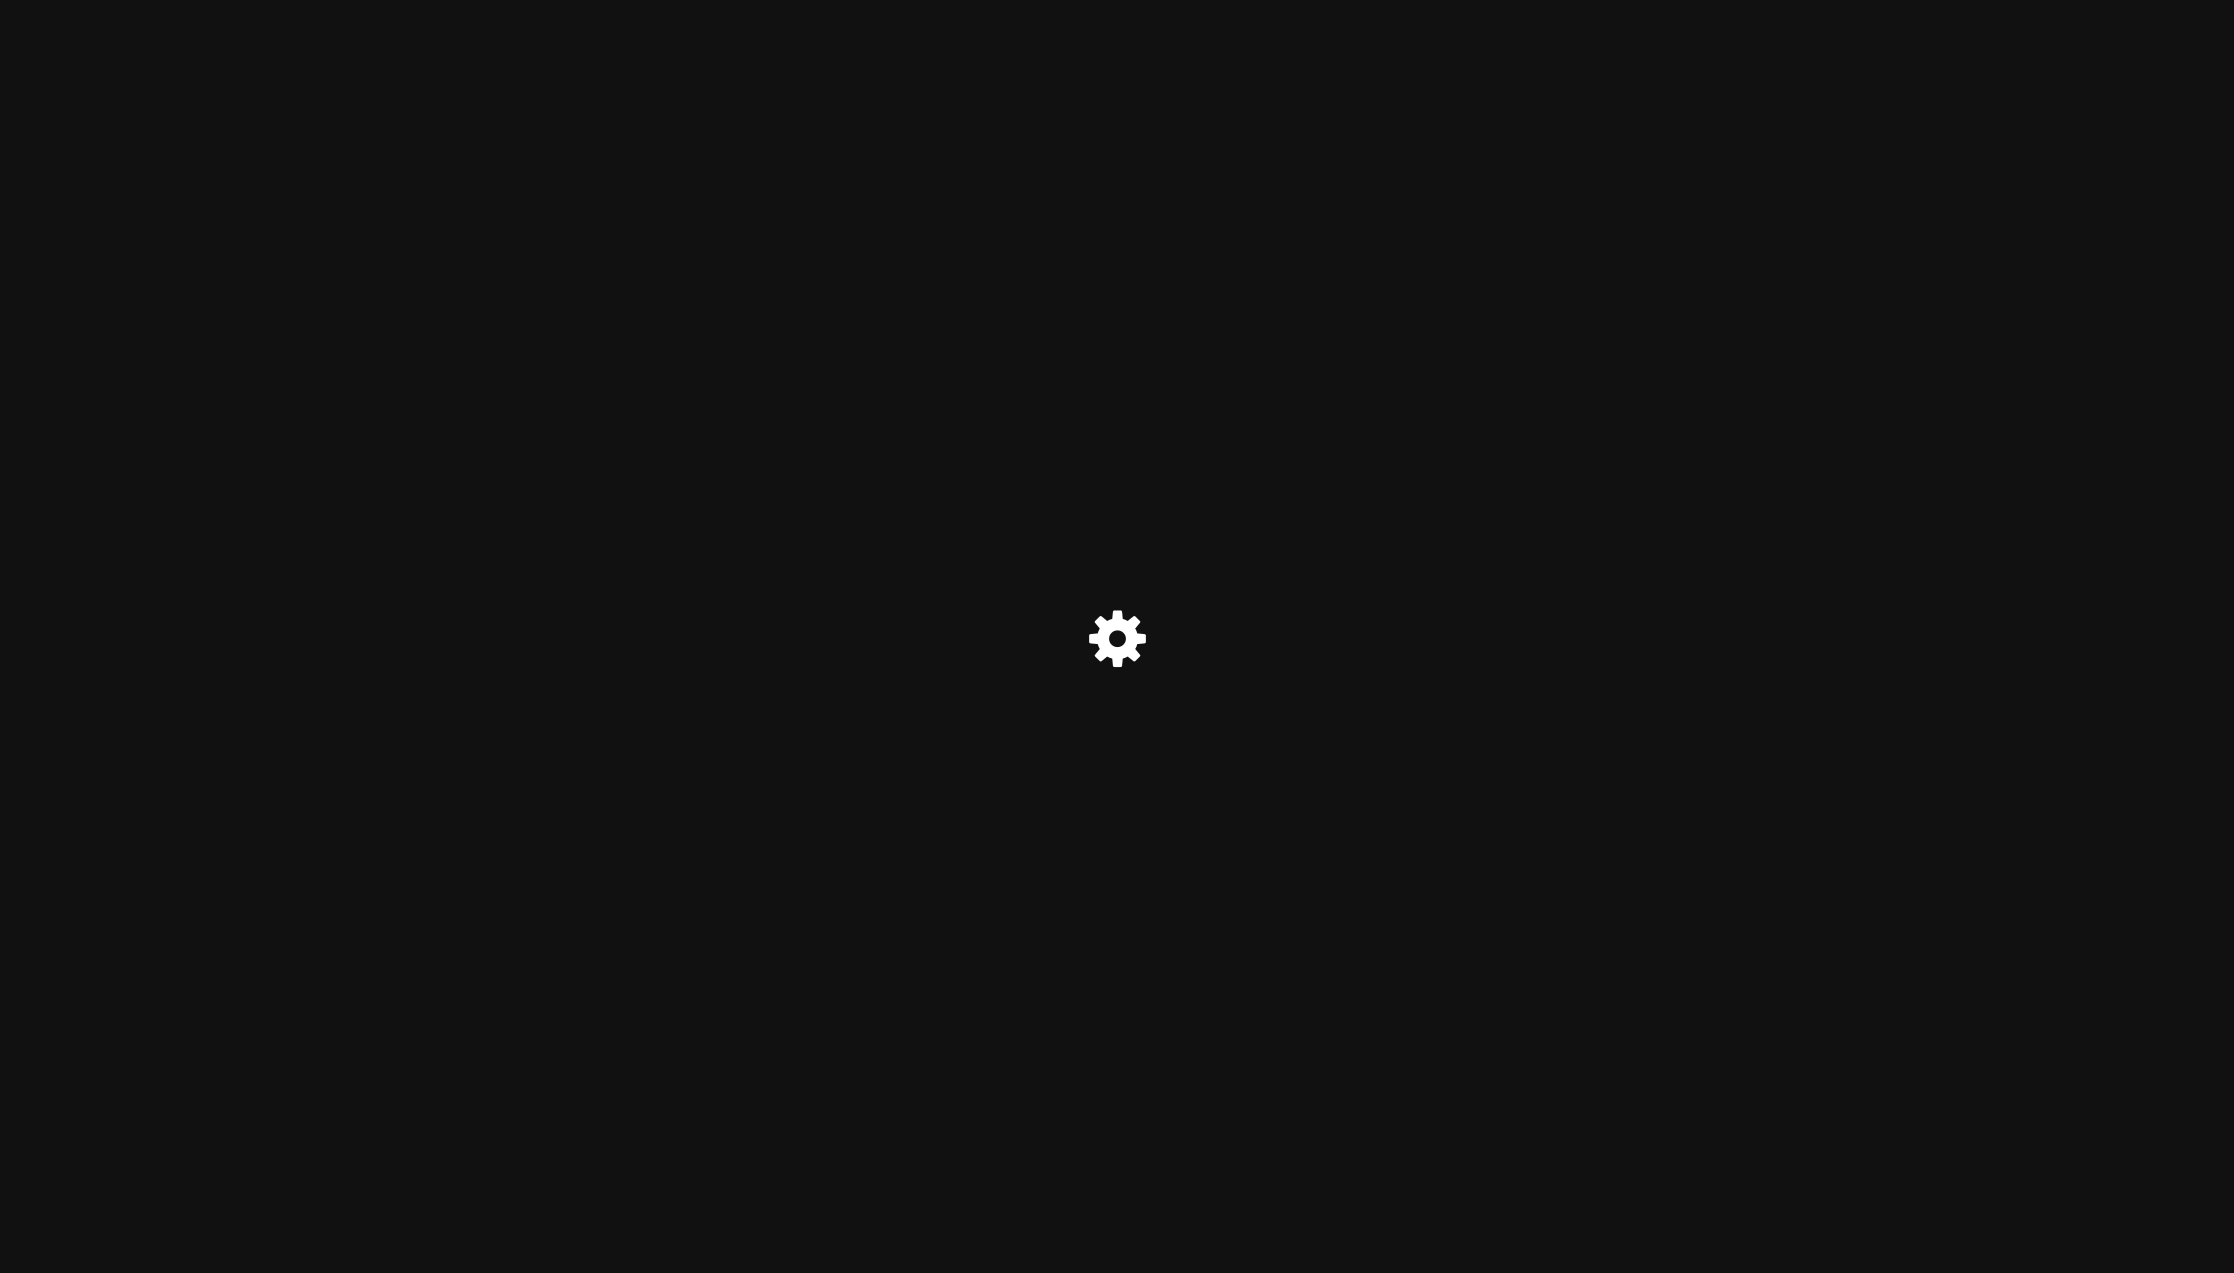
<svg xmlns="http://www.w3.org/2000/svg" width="2234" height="1273">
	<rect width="100%" height="100%" fill="#111111" />
	<image x="1089" y="610" width="57" height="58" href="assets/img1.png" />
</svg>
